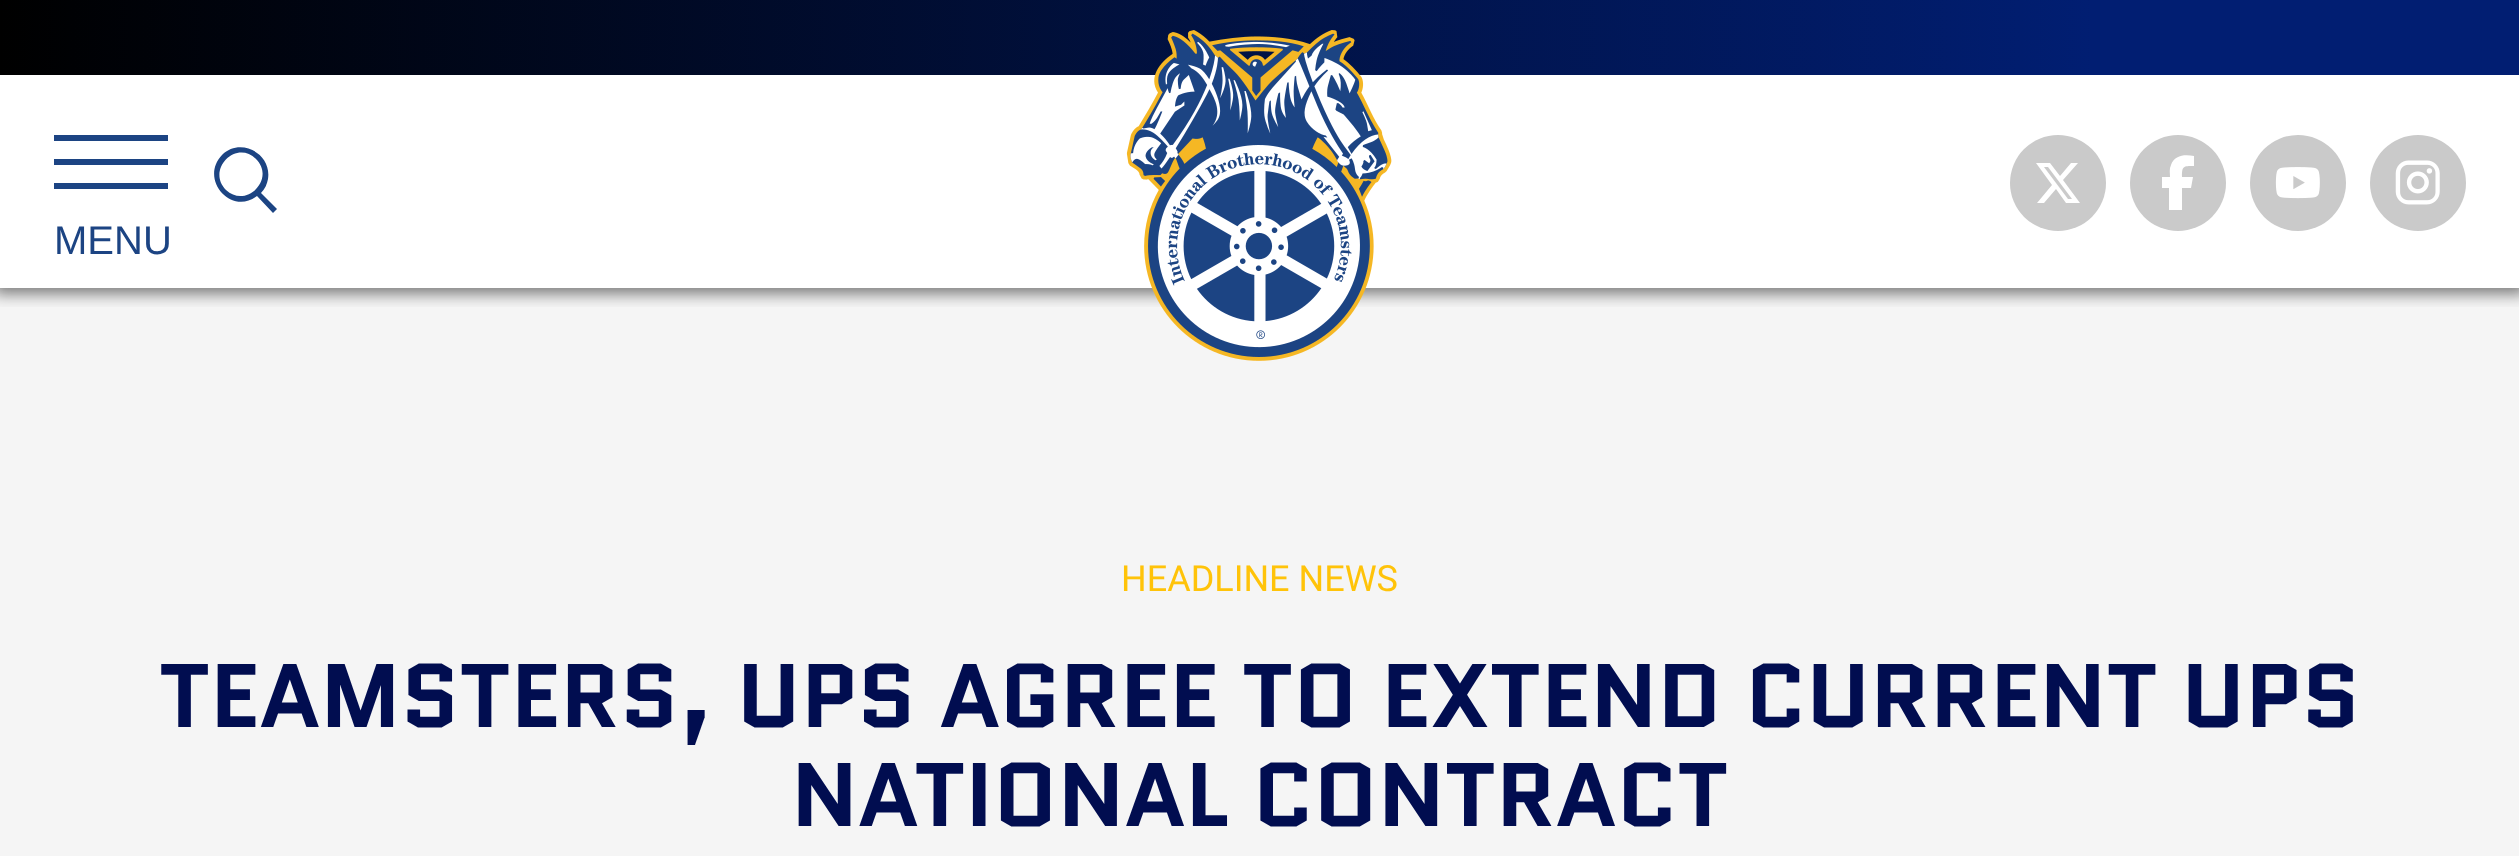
<svg xmlns="http://www.w3.org/2000/svg" width="2519" height="856">
	<defs>
		<clipPath id="clip1"><rect x="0" y="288" width="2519" height="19" /></clipPath>
		<linearGradient id="g1" gradientUnits="userSpaceOnUse" x1="0" y1="38" x2="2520" y2="37"><stop offset="0" stop-color="#000000" /><stop offset="0.83" stop-color="#011E72" /></linearGradient>
	</defs>
	<rect width="100%" height="100%" fill="#FFFFFF" />
	<rect x="0" y="288" width="2519" height="568" fill="#F5F5F5" />
	<g clip-path="url(#clip1)">
		<rect x="-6" y="-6" width="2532" height="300" fill="#000000" fill-opacity="0.5" filter="blur(7.5px)" />
	</g>
	<rect x="0" y="0" width="2519" height="75" fill="url(#g1)" />
	<image x="1126" y="30" width="266" height="331" href="assets/img1.png" />
	<circle cx="2058" cy="183" r="48" fill="#CACACA" />
	<path d="M2071 163H2078L2063 180L2080 203H2066L2056 189L2044 203H2037L2052 185L2036 163H2050L2060 176ZM2068 199H2072L2048 167H2044Z" fill="#FFFFFF" />
	<circle cx="2178" cy="183" r="48" fill="#CACACA" />
	<path d="M2169 188V210H2182V188H2191L2193 177H2182C2182 166 2183 166 2194 166V156C2185 154 2174 155 2171 165C2169 169 2170 173 2170 177H2162V188H2170Z" fill="#FFFFFF" />
	<circle cx="2298" cy="183" r="48" fill="#CACACA" />
	<image x="2275" y="167" width="45" height="32" href="assets/img2.png" />
	<circle cx="2418" cy="183" r="48" fill="#CACACA" />
	<image x="2395" y="160" width="45" height="45" href="assets/img3.png" />
	<path d="M226 190C206 170 236 139 256 159C276 179 246 209 226 190ZM222 155C199 179 231 216 257 196L273 213L277 209L261 193C265 189 267 184 268 179C272 153 240 137 222 155Z" fill="#1C4483" fill-rule="evenodd" />
	<rect x="54" y="135" width="114" height="6" fill="#1C4483" />
	<rect x="54" y="159" width="114" height="6" fill="#1C4483" />
	<rect x="54" y="183" width="114" height="6" fill="#1C4483" />
	<text x="54" y="254" font-family="Liberation Sans" font-size="40" fill="#1C4483">MENU</text>
	<text x="1121" y="591" font-family="Roboto" font-size="36" fill="#FFC309">HEADLINE NEWS</text>
	<g font-family="Quantico" font-size="90" font-weight="700" fill="#010D50">
		<text x="159" y="727">TEAMSTERS, UPS AGREE TO EXTEND CURRENT UPS</text>
		<text x="791" y="826">NATIONAL CONTRACT</text>
	</g>
</svg>
